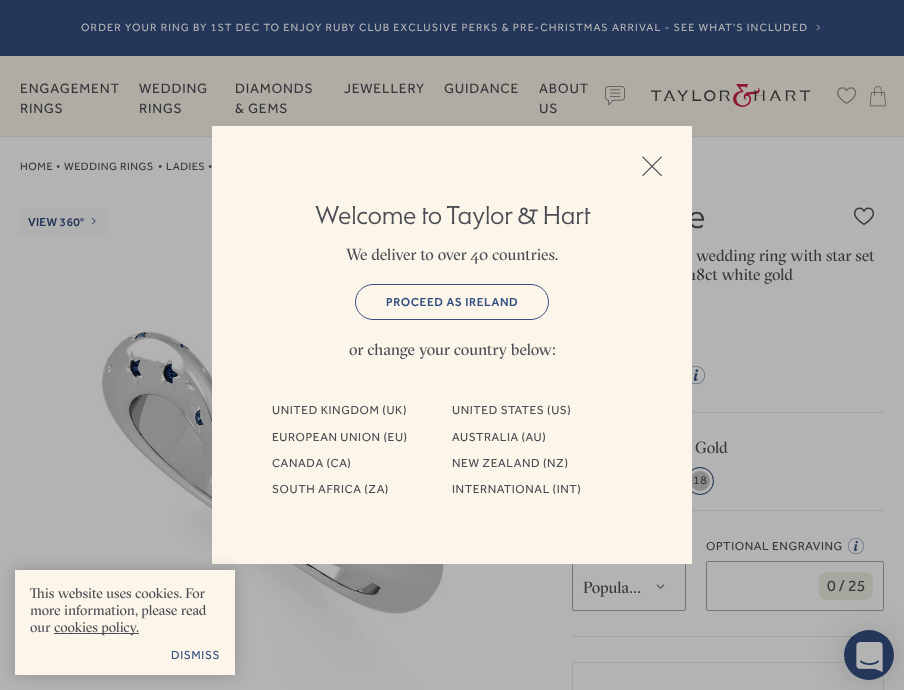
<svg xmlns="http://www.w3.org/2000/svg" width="904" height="690">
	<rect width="100%" height="100%" fill="#B3B3B3" />
	<rect x="0" y="0" width="904" height="56" fill="#24375A" />
	<text x="81" y="31" font-family="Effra" font-size="10.95" letter-spacing="1.1" fill="#B3B3B3">ORDER YOUR RING BY 1ST DEC TO ENJOY RUBY CLUB EXCLUSIVE PERKS &amp; PRE-CHRISTMAS ARRIVAL - SEE WHAT'S INCLUDED</text>
	<image x="816" y="24" width="4" height="7" href="assets/img1.png" />
	<rect x="0" y="56" width="904" height="80" fill="#B0ACA4" />
	<g font-family="Effra" font-size="14" letter-spacing="0.75" fill="#34373B">
		<text x="20" y="93">ENGAGEMENT</text>
		<text x="20" y="113">RINGS</text>
		<text x="139" y="93">WEDDING</text>
		<text x="139" y="113">RINGS</text>
		<text x="235" y="93">DIAMONDS</text>
		<text x="235" y="113">&amp; GEMS</text>
		<text x="344" y="93">JEWELLERY</text>
		<text x="444" y="93">GUIDANCE</text>
		<text x="539" y="93">ABOUT</text>
		<text x="539" y="113">US</text>
	</g>
	<image x="605" y="86" width="20" height="20" href="assets/img2.png" />
	<image x="651" y="84" width="159" height="23" href="assets/img3.png" />
	<image x="837" y="87" width="20" height="17" href="assets/img4.png" />
	<image x="870" y="86" width="16" height="21" href="assets/img5.png" />
	<rect x="0" y="136" width="904" height="1" fill="#A4A3A2" />
	<g font-family="Effra" font-size="11" letter-spacing="0.5" fill="#34373B">
		<text x="20" y="170">HOME</text>
		<text x="56" y="170">•</text>
		<text x="64" y="170">WEDDING RINGS</text>
		<text x="158" y="170">•</text>
		<text x="166" y="170">LADIES</text>
		<text x="208" y="170">•</text>
	</g>
	<image x="10" y="196" width="532" height="494" href="assets/img6.png" />
	<rect x="18" y="208" width="90" height="28" rx="4" fill="#B0B0B0" />
	<text x="28" y="226" font-family="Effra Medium" font-size="12" font-weight="500" letter-spacing="0.25" fill="#24375A">VIEW 360°</text>
	<image x="92" y="217" width="4" height="8" href="assets/img7.png" />
	<rect x="692" y="412" width="192" height="1" fill="#A4A3A2" />
	<text x="688" y="228" font-family="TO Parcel" font-size="32" fill="#34373B">e</text>
	<image x="854" y="207" width="20" height="18" href="assets/img8.png" />
	<g font-family="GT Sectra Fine" font-size="16" fill="#34373B">
		<text x="696" y="261">wedding ring with star set</text>
		<text x="690" y="280">18ct white gold</text>
	</g>
	<image x="692" y="366" width="13" height="19" href="assets/img9.png" />
	<rect x="692" y="510" width="192" height="1" fill="#A4A3A2" />
	<text x="695" y="453" font-family="GT Sectra Fine" font-size="16" fill="#34373B">Gold</text>
	<circle cx="700" cy="481" r="14" fill="#8C8C8C" />
	<circle cx="700" cy="481" r="11.5" fill="none" stroke="#B3B3B3" stroke-width="3" />
	<circle cx="700" cy="481" r="13.5" fill="none" stroke="#24375A" />
	<text x="693" y="484" font-family="Effra" font-size="12" letter-spacing="0.6" fill="#34373B">18</text>
	<rect x="572" y="636" width="281" height="1" fill="#A4A3A2" />
	<rect x="572.5" y="561.5" width="113" height="49" rx="1.5" fill="none" stroke="#737577" />
	<text x="583" y="593" font-family="GT Sectra Fine" font-size="16" fill="#34373B">Popula…</text>
	<image x="656" y="584" width="9" height="5" href="assets/img10.png" />
	<text x="706" y="550" font-family="Effra" font-size="12" letter-spacing="0.6" fill="#34373B">OPTIONAL ENGRAVING</text>
	<image x="848" y="538" width="16" height="16" href="assets/img11.png" />
	<rect x="706.5" y="561.5" width="177" height="49" rx="1.5" fill="none" stroke="#737577" />
	<rect x="819" y="572" width="54" height="28" rx="8" fill="#A7A79F" />
	<text x="827" y="591" font-family="Effra" font-size="16" fill="#34373B">0 / 25</text>
	<rect x="572.5" y="662.5" width="311" height="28" fill="none" stroke="#A4A3A2" />
	<rect x="212" y="126" width="480" height="438" fill="#FCF6EA" />
	<image x="642" y="156" width="20" height="21" href="assets/img12.png" />
	<text x="315" y="224" font-family="TO Parcel" font-size="24" fill="#4A4E54">Welcome to Taylor &amp; Hart</text>
	<text x="346" y="260" font-family="GT Sectra Fine" font-size="16" fill="#4A4E54">We deliver to over 40 countries.</text>
	<rect x="355.5" y="284.5" width="193" height="35" rx="17.5" fill="none" stroke="#334E80" />
	<text x="386" y="306" font-family="Effra Medium" font-size="12" font-weight="500" letter-spacing="0.6" fill="#334E80">PROCEED AS IRELAND</text>
	<text x="349" y="355" font-family="GT Sectra Fine" font-size="16" fill="#4A4E54">or change your country below:</text>
	<g font-family="Effra" font-size="12" letter-spacing="0.6" fill="#4A4E54">
		<text x="272" y="414">UNITED KINGDOM (UK)</text>
		<text x="452" y="414">UNITED STATES (US)</text>
		<text x="272" y="441">EUROPEAN UNION (EU)</text>
		<text x="452" y="441">AUSTRALIA (AU)</text>
		<text x="272" y="467">CANADA (CA)</text>
		<text x="452" y="467">NEW ZEALAND (NZ)</text>
		<text x="272" y="493">SOUTH AFRICA (ZA)</text>
		<text x="452" y="493">INTERNATIONAL (INT)</text>
	</g>
	<rect x="15" y="570" width="220" height="105" fill="#000000" fill-opacity="0.2" filter="blur(7.5px)" />
	<rect x="15" y="570" width="220" height="105" fill="#FCF6EA" />
	<g font-family="GT Sectra Fine" font-size="14" fill="#4A4E54">
		<text x="30" y="598">This website uses cookies. For</text>
		<text x="30" y="615">more information, please read</text>
		<text x="30" y="632">our</text>
	</g>
	<rect x="54" y="633" width="85" height="1" fill="#4A4E54" />
	<text x="54" y="632" font-family="GT Sectra Fine" font-size="14" fill="#4A4E54">cookies policy.</text>
	<text x="171" y="659" font-family="Effra" font-size="12" letter-spacing="0.6" fill="#334E80">DISMISS</text>
	<rect x="844" y="632" width="50" height="50" rx="25" fill="#000000" fill-opacity="0.16" filter="blur(16px)" />
	<circle cx="869" cy="655" r="25" fill="#24375A" />
	<image x="856" y="642" width="27" height="30" href="assets/img13.png" />
</svg>
